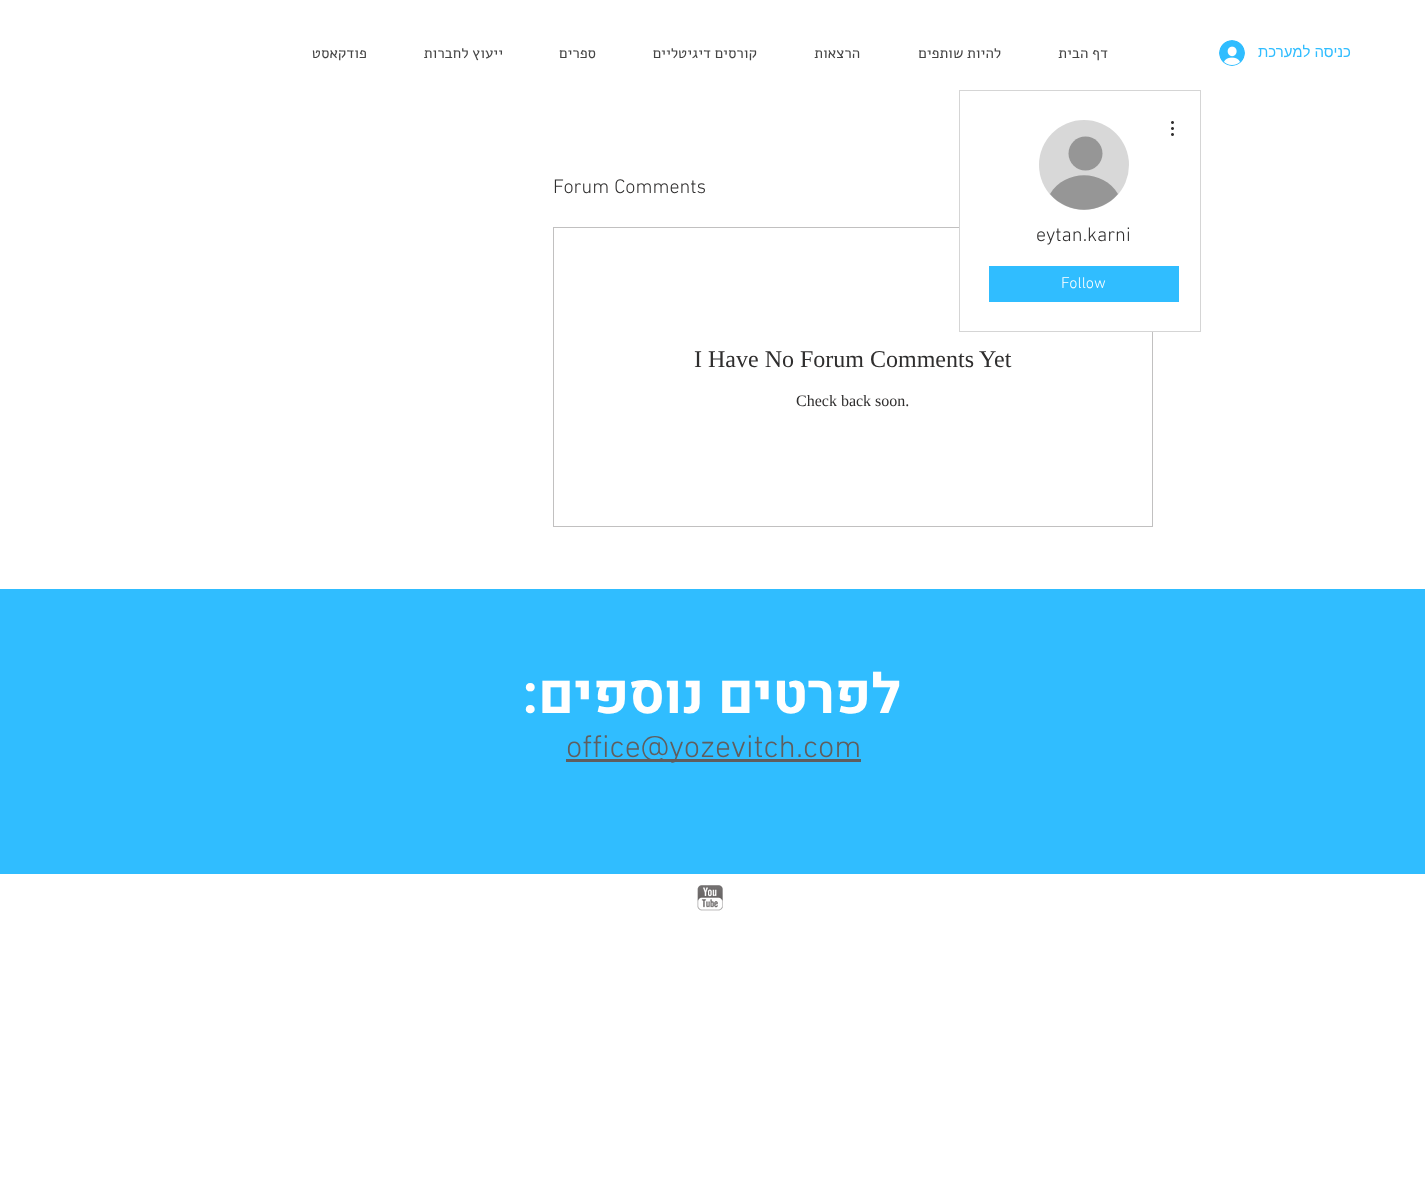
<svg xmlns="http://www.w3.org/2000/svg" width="1425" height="1201">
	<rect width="100%" height="100%" fill="#FFFFFF" />
	<g font-family="Alef" font-size="15" direction="rtl" fill="#444444">
		<text x="367" y="58">פודקאסט</text>
		<text x="503" y="58">ייעוץ לחברות</text>
		<text x="596" y="58">ספרים</text>
		<text x="757" y="58">קורסים דיגיטליים</text>
		<text x="860" y="58">הרצאות</text>
		<text x="1001" y="58">להיות שותפים</text>
		<text x="1108" y="58">דף הבית</text>
	</g>
	<image x="1219" y="40" width="26" height="26" href="assets/img1.png" />
	<text x="1351" y="57" font-family="Liberation Sans" font-size="15" direction="rtl" fill="#30BDFF">כניסה למערכת</text>
	<text x="553" y="193" font-family="'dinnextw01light'" font-size="20" font-weight="300" fill="#2F2E2E">Forum Comments</text>
	<rect x="553.5" y="227.5" width="599" height="299" fill="none" stroke="#C1C0C0" />
	<text x="694" y="367" font-family="Liberation Serif" font-size="24" fill="#2F2E2E">I Have No Forum Comments Yet</text>
	<text x="796" y="406" font-family="Liberation Serif" font-size="16" fill="#2F2E2E">Check back soon.</text>
	<rect x="960" y="227" width="193" height="104" fill="#FFFFFF" />
	<rect x="959.5" y="90.5" width="241" height="241" fill="none" stroke="#D5D5D5" />
	<circle cx="1084" cy="165" r="45" fill="#D8D8D8" />
	<circle cx="1085.5" cy="153.5" r="17" fill="#969696" />
	<path d="M1118 194C1100 215 1068 215 1050 194C1065 169 1103 169 1118 194Z" fill="#969696" />
	<image x="1171" y="121" width="3" height="15" href="assets/img2.png" />
	<text x="1036" y="241" font-family="'dinnextw01light'" font-size="20" font-weight="300" fill="#2F2E2E">eytan.karni</text>
	<rect x="989" y="266" width="190" height="36" fill="#30BDFF" />
	<text x="1061" y="288" font-family="'dinnextw01light'" font-size="16" font-weight="300" fill="#FFFFFF">Follow</text>
	<rect x="0" y="589" width="1425" height="285" fill="#30BDFF" />
	<text x="901" y="713" font-family="Heebo" font-size="55" font-weight="700" direction="rtl" fill="#FFFFFF">לפרטים נוספים:</text>
	<rect x="566" y="759" width="295" height="3" fill="#605E5E" />
	<text x="566" y="757" font-family="'dinnextw01light'" font-size="32" font-weight="300" fill="#605E5E">office@yozevitch.com</text>
	<image x="697" y="885" width="26" height="26" href="assets/img3.png" />
</svg>
